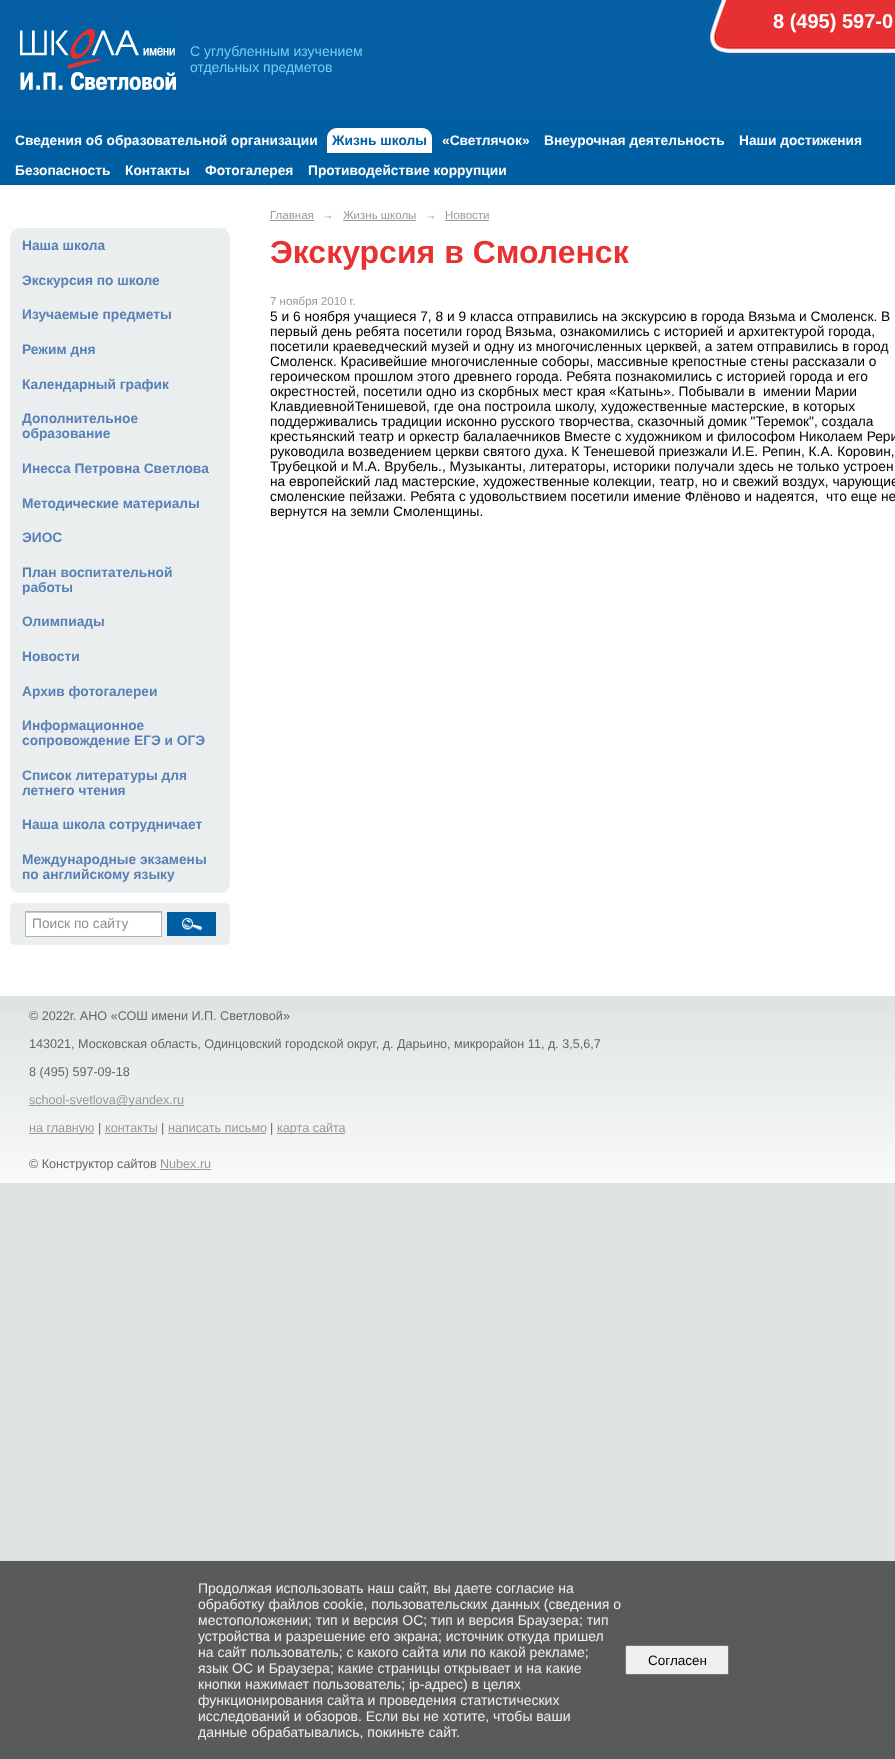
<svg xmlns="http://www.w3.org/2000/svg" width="895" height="1759">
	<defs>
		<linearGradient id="g1" gradientUnits="userSpaceOnUse" x1="480" y1="809" x2="480" y2="996"><stop offset="0" stop-color="#DEE3E3" /><stop offset="1" stop-color="#F9FAFA" /></linearGradient>
		<linearGradient id="g2" gradientUnits="userSpaceOnUse" x1="480" y1="996" x2="480" y2="1183"><stop offset="0" stop-color="#DEE3E3" /><stop offset="1" stop-color="#F9FAFA" /></linearGradient>
	</defs>
	<rect width="100%" height="100%" fill="#DEE3E3" />
	<rect x="0" y="185" width="895" height="810" fill="#FFFFFF" />
	<rect x="0" y="0" width="895" height="118" fill="#055FA4" />
	<image x="708" y="0" width="187" height="62" href="assets/img1.png" />
	<image x="20" y="29" width="156" height="61" href="assets/img2.png" />
	<text x="773" y="28" font-family="Liberation Sans" font-size="20" font-weight="700" fill="#FFFFFF">8 (495) 597-0</text>
	<g font-family="Liberation Sans" font-size="14" fill="#76CDF4">
		<text x="190" y="56">С углубленным изучением</text>
		<text x="190" y="72">отдельных предметов</text>
	</g>
	<rect x="0" y="118" width="895" height="67" fill="#005FA3" />
	<text x="15" y="145" font-family="Liberation Sans" font-size="13.75" font-weight="700" fill="#FFFFFF">Сведения об образовательной организации</text>
	<path d="M337 128H422C427.5 128 432 132.5 432 138V153H327V138C327 132.5 331.5 128 337 128Z" fill="#FFFFFF" />
	<text x="332" y="145" font-family="Liberation Sans" font-size="13.75" font-weight="700" fill="#0060A4">Жизнь школы</text>
	<g font-family="Liberation Sans" font-size="13.75" font-weight="700" fill="#FFFFFF">
		<text x="442" y="145">«Светлячок»</text>
		<text x="544" y="145">Внеурочная деятельность</text>
		<text x="739" y="145">Наши достижения</text>
		<text x="15" y="175">Безопасность</text>
		<text x="125" y="175">Контакты</text>
		<text x="205" y="175">Фотогалерея</text>
		<text x="308" y="175">Противодействие коррупции</text>
	</g>
	<rect x="10" y="228" width="220" height="665" rx="10" fill="#EBEEEE" />
	<path d="M10 892.5H230" fill="none" stroke="#ECEFEF" stroke-dasharray="1 1" />
	<path d="M10 228.5H230" fill="none" stroke="#ECEFEF" stroke-dasharray="1 1" />
	<g font-family="Liberation Sans" font-size="13.75" font-weight="700" fill="#5881B6">
		<text x="22" y="250">Наша школа</text>
		<text x="22" y="285">Экскурсия по школе</text>
		<text x="22" y="319">Изучаемые предметы</text>
		<text x="22" y="354">Режим дня</text>
		<text x="22" y="389">Календарный график</text>
		<text x="22" y="423">Дополнительное</text>
		<text x="22" y="438">образование</text>
		<text x="22" y="473">Инесса Петровна Светлова</text>
		<text x="22" y="508">Методические материалы</text>
		<text x="22" y="542">ЭИОС</text>
		<text x="22" y="577">План воспитательной</text>
		<text x="22" y="592">работы</text>
		<text x="22" y="626">Олимпиады</text>
		<text x="22" y="661">Новости</text>
		<text x="22" y="696">Архив фотогалереи</text>
		<text x="22" y="730">Информационное</text>
		<text x="22" y="745">сопровождение ЕГЭ и ОГЭ</text>
		<text x="22" y="780">Список литературы для</text>
		<text x="22" y="795">летнего чтения</text>
		<text x="22" y="829">Наша школа сотрудничает</text>
		<text x="22" y="864">Международные экзамены</text>
		<text x="22" y="879">по английскому языку</text>
	</g>
	<rect x="10" y="903" width="220" height="42" rx="5" fill="#ECEFEF" />
	<rect x="26" y="913" width="135" height="23" fill="#FFFFFF" />
	<rect x="26" y="912" width="135" height="1" fill="#C6C6C6" />
	<rect x="25.5" y="911.5" width="136" height="25" fill="none" stroke="#B3B3B3" />
	<text x="32" y="928" font-family="Liberation Sans" font-size="13.75" fill="#909090">Поиск по сайту</text>
	<rect x="167" y="912" width="49" height="24" fill="#005FA3" />
	<image x="182" y="918" width="20" height="13" href="assets/img3.png" />
	<text x="270" y="219" font-family="Liberation Sans" font-size="11.5" fill="#999999">Главная</text>
	<rect x="270" y="220" width="44" height="1" fill="#999999" />
	<text x="322" y="219" font-family="Liberation Sans" font-size="11.5" font-style="italic" fill="#999999">→</text>
	<text x="343" y="219" font-family="Liberation Sans" font-size="11.5" fill="#999999">Жизнь школы</text>
	<rect x="343" y="220" width="73" height="1" fill="#999999" />
	<text x="425" y="219" font-family="Liberation Sans" font-size="11.5" font-style="italic" fill="#999999">→</text>
	<text x="445" y="219" font-family="Liberation Sans" font-size="11.5" fill="#999999">Новости</text>
	<rect x="445" y="220" width="44" height="1" fill="#999999" />
	<text x="270" y="263" font-family="Liberation Sans" font-size="32" font-weight="700" fill="#E73232">Экскурсия в Смоленск</text>
	<text x="270" y="305" font-family="Liberation Sans" font-size="11.5" fill="#999999">7 ноября 2010 г.</text>
	<g font-family="Liberation Sans" font-size="13.75" fill="#000000">
		<text x="270" y="321">5 и 6 ноября учащиеся 7, 8 и 9 класса отправились на экскурсию в города Вязьма и Смоленск. В</text>
		<text x="270" y="336">первый день ребята посетили город Вязьма, ознакомились с историей и архитектурой города,</text>
		<text x="270" y="351">посетили краеведческий музей и одну из многочисленных церквей, а затем отправились в город</text>
		<text x="270" y="366">Смоленск. Красивейшие многочисленные соборы, массивные крепостные стены рассказали о</text>
		<text x="270" y="381">героическом прошлом этого древнего города. Ребята познакомились с историей города и его</text>
		<text x="270" y="396" xml:space="preserve">окрестностей, посетили одно из скорбных мест края «Катынь». Побывали в  имении Марии</text>
		<text x="270" y="411">КлавдиевнойТенишевой, где она построила школу, художественные мастерские, в которых</text>
		<text x="270" y="426">поддерживались традиции исконно русского творчества, сказочный домик "Теремок", создала</text>
		<text x="270" y="441">крестьянский театр и оркестр балалаечников Вместе с художником и философом Николаем Рери</text>
		<text x="270" y="456">руководила возведением церкви святого духа. К Тенешевой приезжали И.Е. Репин, К.А. Коровин,</text>
		<text x="270" y="471">Трубецкой и М.А. Врубель., Музыканты, литераторы, историки получали здесь не только устроен</text>
		<text x="270" y="486">на европейский лад мастерские, художественные колекции, театр, но и свежий воздух, чарующие</text>
		<text x="270" y="501" xml:space="preserve">смоленские пейзажи. Ребята с удовольствием посетили имение Флёново и надеятся,  что еще не</text>
		<text x="270" y="516">вернутся на земли Смоленщины.</text>
	</g>
	<rect x="0" y="995" width="895" height="1" fill="url(#g1)" />
	<rect x="0" y="1013" width="895" height="170" fill="url(#g2)" />
	<path d="M0 995.5H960" fill="none" stroke="#FFFFFF" stroke-dasharray="1 1" />
	<g font-family="Liberation Sans" font-size="12.6" fill="#666666">
		<text x="29" y="1020">© 2022г. АНО «СОШ имени И.П. Светловой»</text>
		<text x="29" y="1048">143021, Московская область, Одинцовский городской округ, д. Дарьино, микрорайон 11, д. 3,5,6,7</text>
		<text x="29" y="1076">8 (495) 597-09-18</text>
	</g>
	<rect x="29" y="1105" width="155" height="1" fill="#999999" />
	<text x="29" y="1104" font-family="Liberation Sans" font-size="12.6" fill="#999999">school-svetlova@yandex.ru</text>
	<rect x="29" y="1133" width="65" height="1" fill="#999999" />
	<text x="29" y="1132" font-family="Liberation Sans" font-size="12.6" fill="#999999">на главную</text>
	<text x="98" y="1132" font-family="Liberation Sans" font-size="12.6" fill="#666666">|</text>
	<text x="105" y="1132" font-family="Liberation Sans" font-size="12.6" fill="#999999">контакты</text>
	<rect x="105" y="1133" width="52" height="1" fill="#999999" />
	<text x="161" y="1132" font-family="Liberation Sans" font-size="12.6" fill="#666666">|</text>
	<text x="168" y="1132" font-family="Liberation Sans" font-size="12.6" fill="#999999">написать письмо</text>
	<rect x="168" y="1133" width="98" height="1" fill="#999999" />
	<text x="270" y="1132" font-family="Liberation Sans" font-size="12.6" fill="#666666">|</text>
	<rect x="277" y="1133" width="68" height="1" fill="#999999" />
	<text x="277" y="1132" font-family="Liberation Sans" font-size="12.6" fill="#999999">карта сайта</text>
	<text x="29" y="1168" font-family="Liberation Sans" font-size="12.6" fill="#666666">© Конструктор сайтов</text>
	<text x="160" y="1168" font-family="Liberation Sans" font-size="12.6" fill="#999999">Nubex.ru</text>
	<rect x="160" y="1169" width="51" height="1" fill="#999999" />
	<rect x="0" y="1561" width="895" height="198" fill="#595B5B" />
	<g font-family="Liberation Sans" font-size="14" fill="#EFEFEF">
		<text x="198" y="1593">Продолжая использовать наш сайт, вы даете согласие на</text>
		<text x="198" y="1609">обработку файлов cookie, пользовательских данных (сведения о</text>
		<text x="198" y="1625">местоположении; тип и версия ОС; тип и версия Браузера; тип</text>
		<text x="198" y="1641">устройства и разрешение его экрана; источник откуда пришел</text>
		<text x="198" y="1657">на сайт пользователь; с какого сайта или по какой рекламе;</text>
		<text x="198" y="1673">язык ОС и Браузера; какие страницы открывает и на какие</text>
		<text x="198" y="1689">кнопки нажимает пользователь; ip-адрес) в целях</text>
		<text x="198" y="1705">функционирования сайта и проведения статистических</text>
		<text x="198" y="1721">исследований и обзоров. Если вы не хотите, чтобы ваши</text>
		<text x="198" y="1737">данные обрабатывались, покиньте сайт.</text>
	</g>
	<rect x="625.5" y="1645.5" width="103" height="29" rx="1.5" fill="#EFEFEF" stroke="#767676" />
	<text x="648" y="1665" font-family="Liberation Sans" font-size="13.5" fill="#000000">Согласен</text>
</svg>
